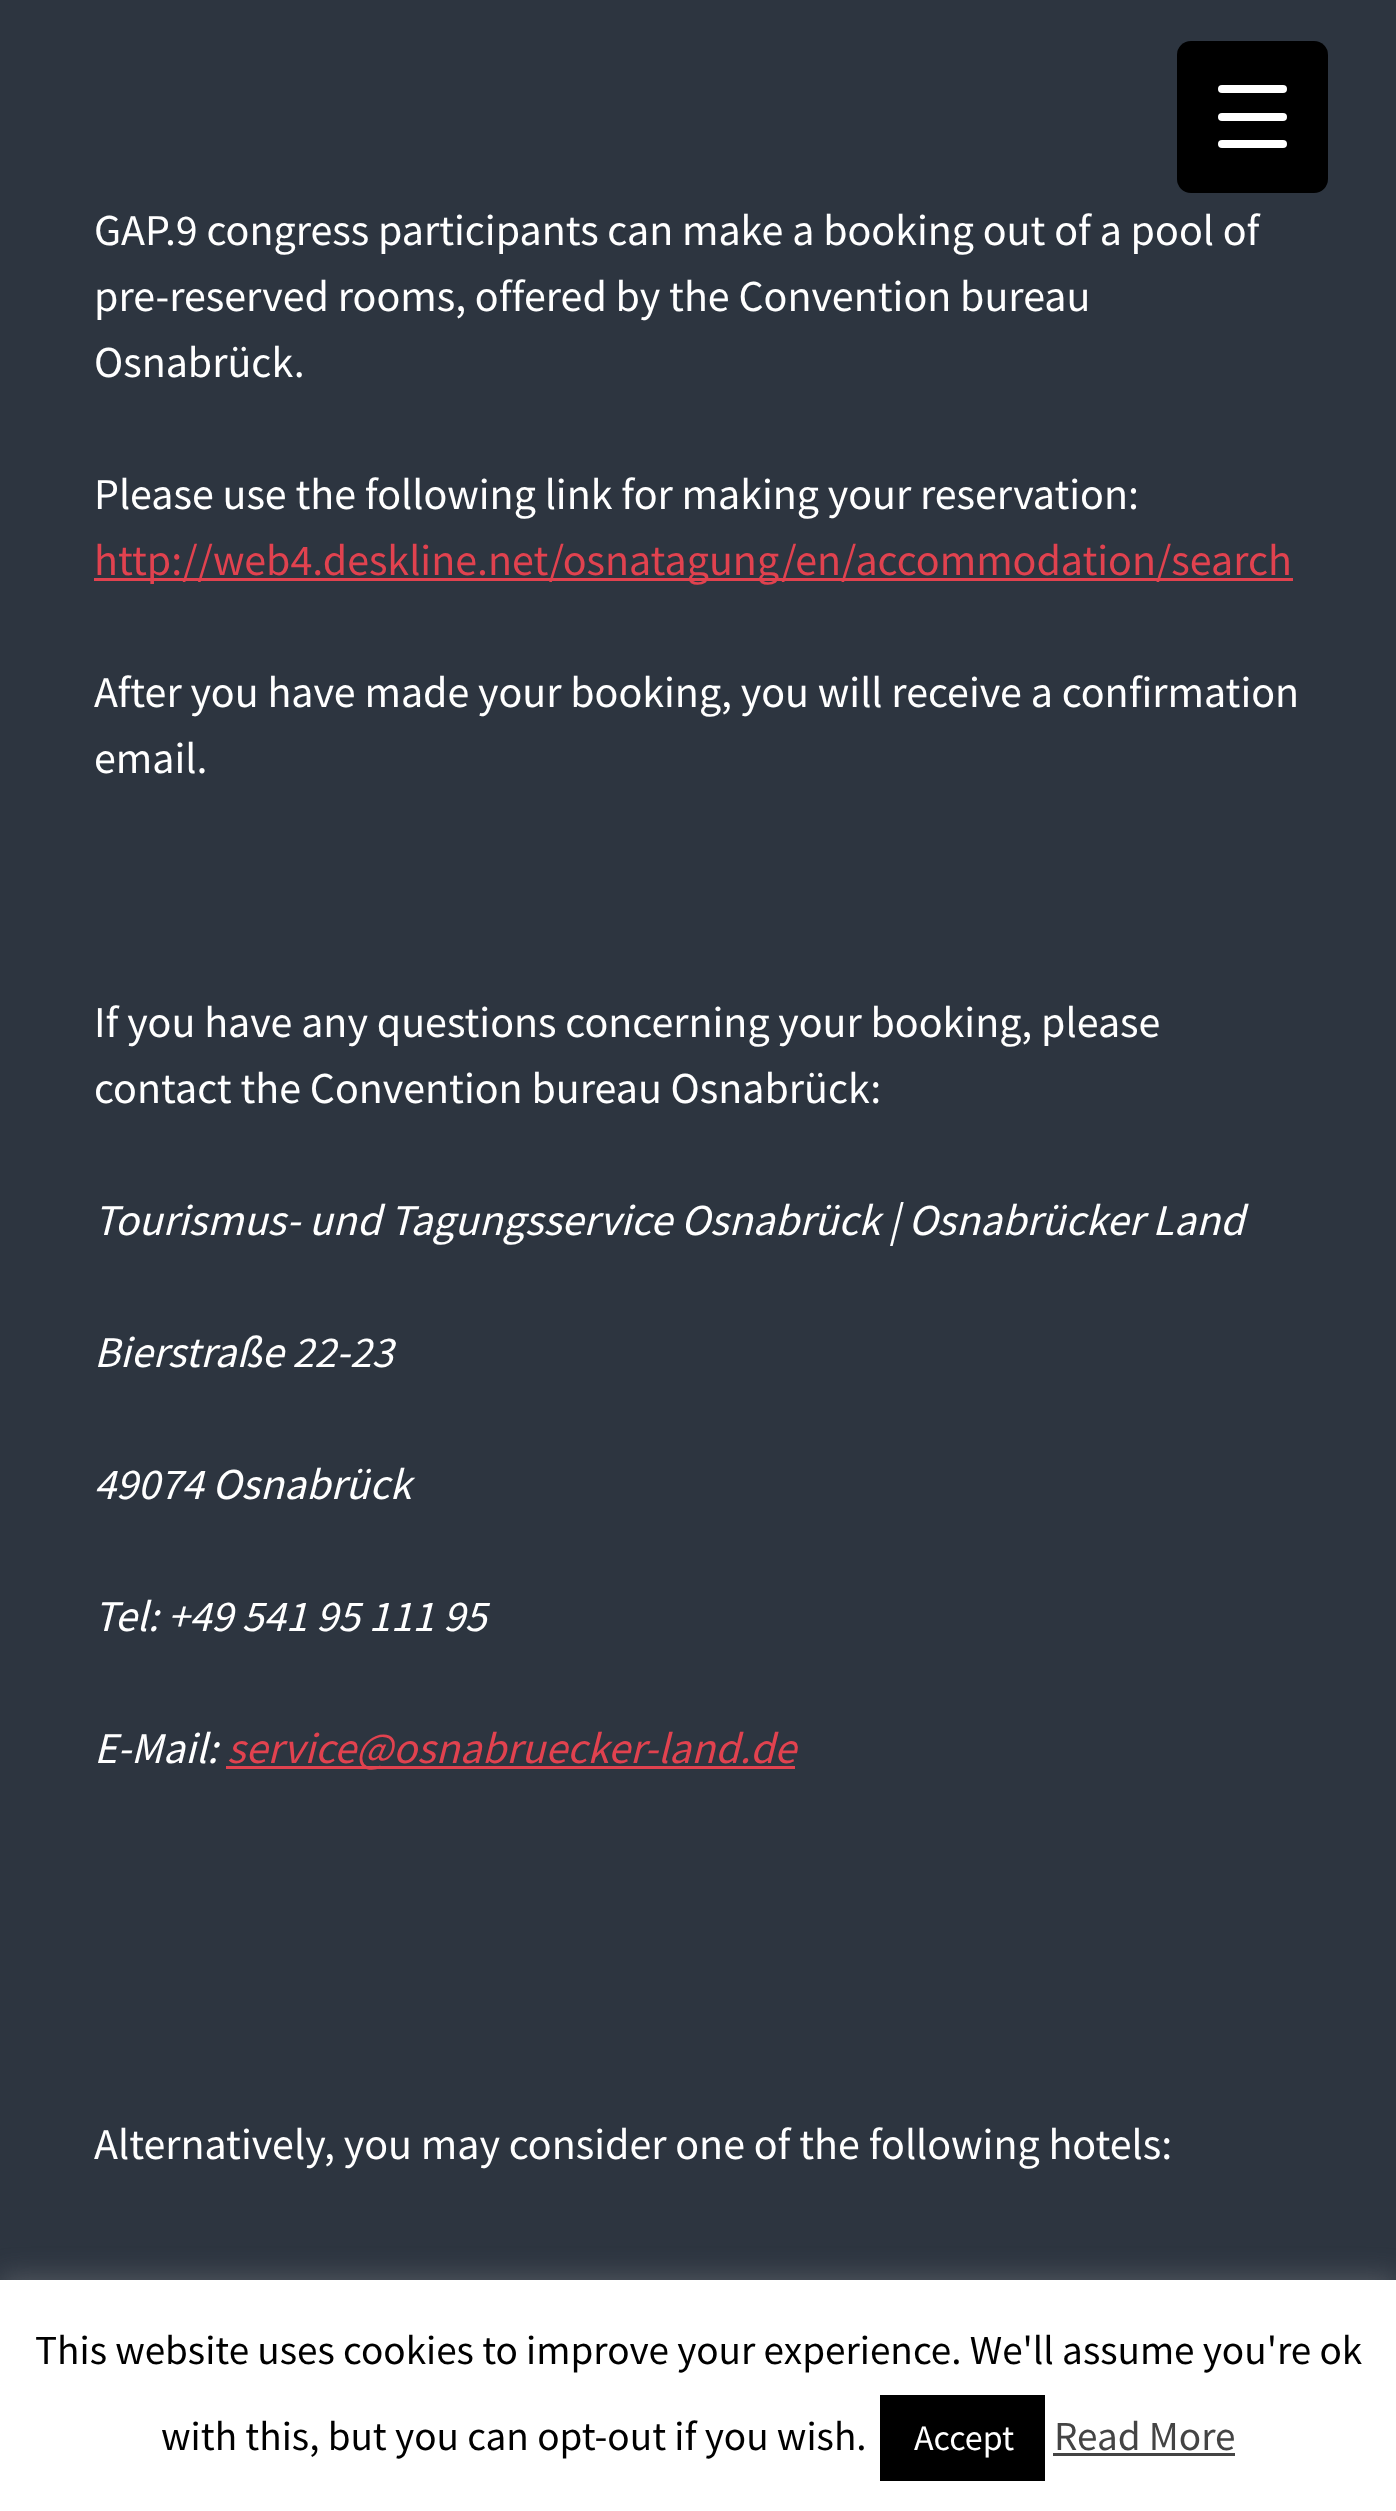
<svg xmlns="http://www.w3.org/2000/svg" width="1396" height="2511">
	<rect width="100%" height="100%" fill="#2D3540" />
	<rect x="1177" y="41" width="151" height="152" rx="14" fill="#000000" />
	<rect x="1218" y="113" width="69" height="8" rx="4" fill="#FFFFFF" />
	<rect x="1218" y="85" width="69" height="8" rx="4" fill="#FFFFFF" />
	<rect x="1218" y="140" width="69" height="8" rx="4" fill="#FFFFFF" />
	<g font-family="Source Sans Pro" font-size="44" fill="#FFFFFF">
		<text x="94" y="245">GAP.9 congress participants can make a booking out of a pool of</text>
		<text x="94" y="311">pre-reserved rooms, offered by the Convention bureau</text>
		<text x="94" y="377">Osnabrück.</text>
		<text x="94" y="509">Please use the following link for making your reservation:</text>
	</g>
	<rect x="94" y="578" width="1199" height="3" fill="#E1424F" />
	<text x="94" y="575" font-family="Source Sans Pro" font-size="44" fill="#E1424F">http://web4.deskline.net/osnatagung/en/accommodation/search</text>
	<g font-family="Source Sans Pro" font-size="44" fill="#FFFFFF">
		<text x="94" y="707">After you have made your booking, you will receive a confirmation</text>
		<text x="94" y="773">email.</text>
		<text x="94" y="1037">If you have any questions concerning your booking, please</text>
		<text x="94" y="1103">contact the Convention bureau Osnabrück:</text>
	</g>
	<g font-family="Source Sans Pro" font-size="44" font-style="italic" fill="#FFFFFF">
		<text x="94" y="1235">Tourismus- und Tagungsservice Osnabrück | Osnabrücker Land</text>
		<text x="94" y="1367">Bierstraße 22-23</text>
		<text x="94" y="1499">49074 Osnabrück</text>
		<text x="94" y="1631">Tel: +49 541 95 111 95</text>
		<text x="94" y="1763">E-Mail:</text>
	</g>
	<rect x="226" y="1766" width="569" height="3" fill="#E1424F" />
	<text x="227" y="1763" font-family="Source Sans Pro" font-size="44" font-style="italic" fill="#E1424F">service@osnabruecker-land.de</text>
	<text x="94" y="2159" font-family="Source Sans Pro" font-size="44" fill="#FFFFFF">Alternatively, you may consider one of the following hotels:</text>
	<rect x="0" y="2277" width="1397" height="234" fill="#ACABAB" fill-opacity="0.3" filter="blur(14px)" />
	<rect x="0" y="2280" width="1396" height="231" fill="#FFFFFF" />
	<g font-family="Source Sans Pro" font-size="41.25" fill="#000000">
		<text x="35" y="2364">This website uses cookies to improve your experience. We'll assume you're ok</text>
		<text x="161" y="2450">with this, but you can opt-out if you wish.</text>
	</g>
	<rect x="880" y="2395" width="165" height="86" fill="#000000" />
	<text x="914" y="2450" font-family="Source Sans Pro" font-size="36" fill="#FFFFFF">Accept</text>
	<text x="1054" y="2450" font-family="Source Sans Pro" font-size="41.25" fill="#444444">Read More</text>
	<rect x="1053" y="2453" width="182" height="3" fill="#444444" />
</svg>
